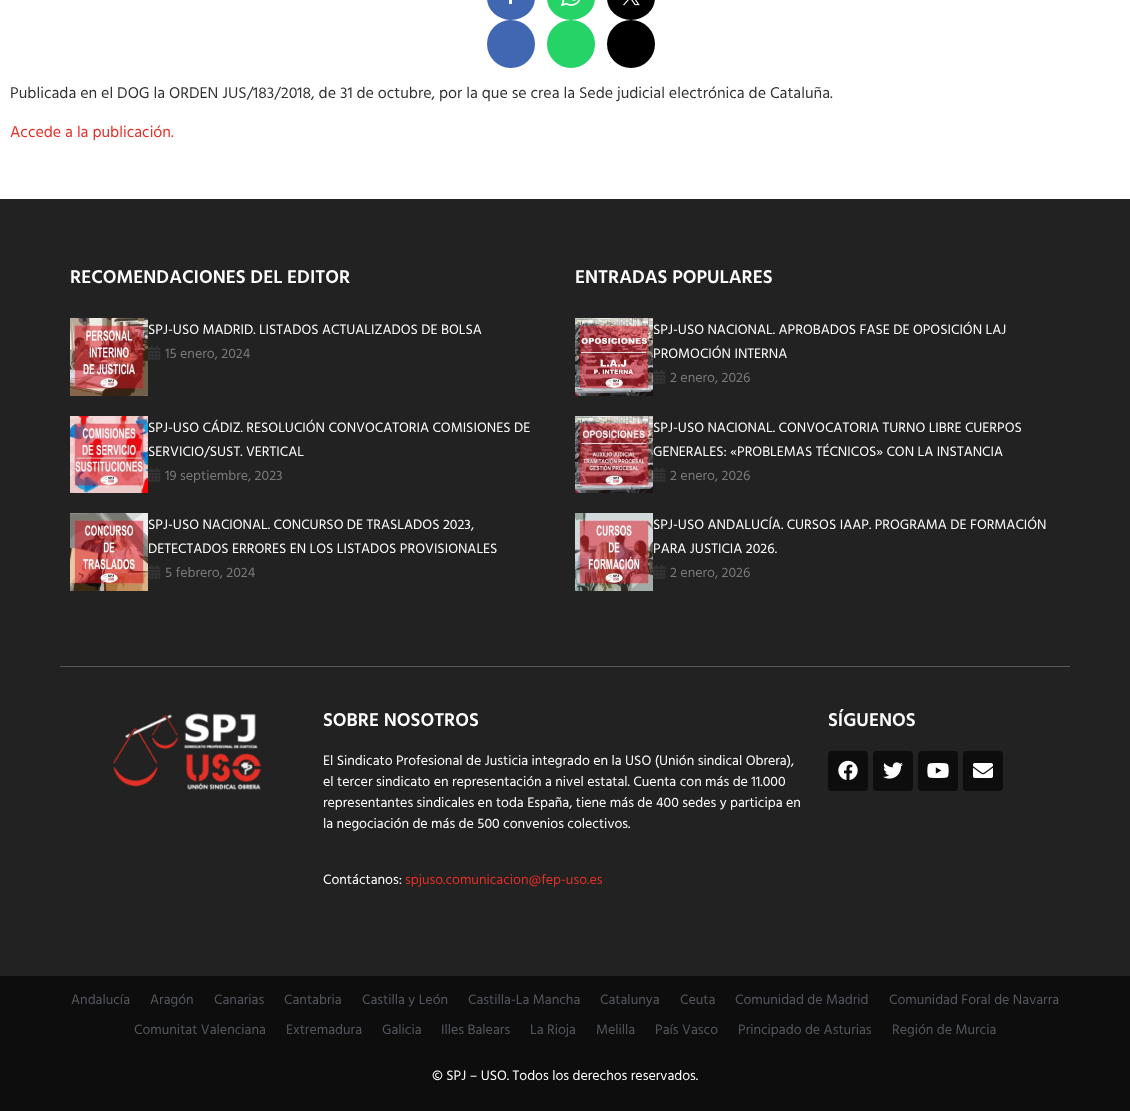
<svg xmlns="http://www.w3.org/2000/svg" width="1130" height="1111">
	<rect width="100%" height="100%" fill="#FFFFFF" />
	<rect x="487" y="-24" width="48" height="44" rx="24" fill="#4267B2" />
	<rect x="509" y="0" width="3" height="4" fill="#FFFFFF" />
	<circle cx="511" cy="44" r="24" fill="#4267B2" />
	<rect x="547" y="-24" width="48" height="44" rx="24" fill="#25D366" />
	<image x="560" y="0" width="21" height="7" href="assets/img1.png" />
	<circle cx="571" cy="44" r="24" fill="#25D366" />
	<rect x="607" y="-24" width="48" height="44" rx="24" fill="#000000" />
	<image x="623" y="0" width="17" height="6" href="assets/img2.png" />
	<circle cx="631" cy="44" r="24" fill="#000000" />
	<text x="10" y="98" font-family="Hind" font-size="16" fill="#333333">Publicada en el DOG la ORDEN JUS/183/2018, de 31 de octubre, por la que se crea la Sede judicial electrónica de Cataluña.</text>
	<text x="10" y="137" font-family="Hind" font-size="16" fill="#E53027">Accede a la publicación.</text>
	<rect x="0" y="199" width="1130" height="777" fill="#222222" />
	<text x="70" y="283" font-family="Hind" font-size="19" font-weight="600" fill="#FFFFFF">RECOMENDACIONES DEL EDITOR</text>
	<image x="70" y="318" width="78" height="78" href="assets/img3.png" />
	<text x="148" y="334" font-family="Hind" font-size="14" fill="#FFFFFF">SPJ-USO MADRID. LISTADOS ACTUALIZADOS DE BOLSA</text>
	<image x="148" y="345" width="13" height="15" href="assets/img4.png" />
	<text x="165" y="358" font-family="Hind" font-size="14" fill="#7A7A7A">15 enero, 2024</text>
	<image x="70" y="416" width="78" height="77" href="assets/img5.png" />
	<g font-family="Hind" font-size="14" fill="#FFFFFF">
		<text x="148" y="432">SPJ-USO CÁDIZ. RESOLUCIÓN CONVOCATORIA COMISIONES DE</text>
		<text x="148" y="456">SERVICIO/SUST. VERTICAL</text>
	</g>
	<image x="148" y="467" width="13" height="15" href="assets/img4.png" />
	<text x="165" y="480" font-family="Hind" font-size="14" fill="#7A7A7A">19 septiembre, 2023</text>
	<image x="70" y="513" width="78" height="78" href="assets/img6.png" />
	<g font-family="Hind" font-size="14" fill="#FFFFFF">
		<text x="148" y="529">SPJ-USO NACIONAL. CONCURSO DE TRASLADOS 2023,</text>
		<text x="148" y="553">DETECTADOS ERRORES EN LOS LISTADOS PROVISIONALES</text>
	</g>
	<image x="148" y="564" width="13" height="15" href="assets/img4.png" />
	<text x="165" y="577" font-family="Hind" font-size="14" fill="#7A7A7A">5 febrero, 2024</text>
	<text x="575" y="283" font-family="Hind" font-size="19" font-weight="600" fill="#FFFFFF">ENTRADAS POPULARES</text>
	<image x="575" y="318" width="78" height="78" href="assets/img7.png" />
	<g font-family="Hind" font-size="14" fill="#FFFFFF">
		<text x="653" y="334">SPJ-USO NACIONAL. APROBADOS FASE DE OPOSICIÓN LAJ</text>
		<text x="653" y="358">PROMOCIÓN INTERNA</text>
	</g>
	<image x="653" y="369" width="13" height="15" href="assets/img4.png" />
	<text x="670" y="382" font-family="Hind" font-size="14" fill="#7A7A7A">2 enero, 2026</text>
	<image x="575" y="416" width="78" height="77" href="assets/img8.png" />
	<g font-family="Hind" font-size="14" fill="#FFFFFF">
		<text x="653" y="432">SPJ-USO NACIONAL. CONVOCATORIA TURNO LIBRE CUERPOS</text>
		<text x="653" y="456">GENERALES: «PROBLEMAS TÉCNICOS» CON LA INSTANCIA</text>
	</g>
	<image x="653" y="467" width="13" height="15" href="assets/img4.png" />
	<text x="670" y="480" font-family="Hind" font-size="14" fill="#7A7A7A">2 enero, 2026</text>
	<image x="575" y="513" width="78" height="78" href="assets/img9.png" />
	<g font-family="Hind" font-size="14" fill="#FFFFFF">
		<text x="653" y="529">SPJ-USO ANDALUCÍA. CURSOS IAAP. PROGRAMA DE FORMACIÓN</text>
		<text x="653" y="553">PARA JUSTICIA 2026.</text>
	</g>
	<image x="653" y="564" width="13" height="15" href="assets/img4.png" />
	<text x="670" y="577" font-family="Hind" font-size="14" fill="#7A7A7A">2 enero, 2026</text>
	<rect x="60" y="666" width="1010" height="1" fill="#54595F" />
	<image x="112" y="713" width="149" height="77" href="assets/img10.png" />
	<text x="323" y="726" font-family="Hind" font-size="19" font-weight="600" fill="#FFFFFF">SOBRE NOSOTROS</text>
	<g font-family="Hind" font-size="14" fill="#FFFFFF">
		<text x="323" y="765">El Sindicato Profesional de Justicia integrado en la USO (Unión sindical Obrera),</text>
		<text x="323" y="786">el tercer sindicato en representación a nivel estatal. Cuenta con más de 11.000</text>
		<text x="323" y="807">representantes sindicales en toda España, tiene más de 400 sedes y participa en</text>
		<text x="323" y="828">la negociación de más de 500 convenios colectivos.</text>
		<text x="323" y="884">Contáctanos:</text>
	</g>
	<text x="405" y="884" font-family="Hind" font-size="14" fill="#E53027">spjuso.comunicacion@fep-uso.es</text>
	<text x="828" y="726" font-family="Hind" font-size="19" font-weight="600" fill="#FFFFFF">SÍGUENOS</text>
	<rect x="828" y="751" width="40" height="40" rx="4" fill="#0D0D0D" />
	<image x="838" y="760" width="20" height="20" href="assets/img11.png" />
	<rect x="873" y="751" width="40" height="40" rx="4" fill="#0D0D0D" />
	<image x="883" y="762" width="20" height="17" href="assets/img12.png" />
	<rect x="918" y="751" width="40" height="40" rx="4" fill="#0D0D0D" />
	<image x="927" y="763" width="22" height="15" href="assets/img13.png" />
	<rect x="963" y="751" width="40" height="40" rx="4" fill="#0D0D0D" />
	<image x="973" y="763" width="20" height="15" href="assets/img14.png" />
	<rect x="0" y="976" width="1130" height="135" fill="#0D0D0D" />
	<g font-family="Hind" font-size="14" fill="#54595F">
		<text x="71" y="1004">Andalucía</text>
		<text x="150" y="1004">Aragón</text>
		<text x="214" y="1004">Canarias</text>
		<text x="284" y="1004">Cantabria</text>
		<text x="362" y="1004">Castilla y León</text>
		<text x="468" y="1004">Castilla-La Mancha</text>
		<text x="600" y="1004">Catalunya</text>
		<text x="680" y="1004">Ceuta</text>
		<text x="735" y="1004">Comunidad de Madrid</text>
		<text x="889" y="1004">Comunidad Foral de Navarra</text>
		<text x="134" y="1034">Comunitat Valenciana</text>
		<text x="286" y="1034">Extremadura</text>
		<text x="382" y="1034">Galicia</text>
		<text x="441" y="1034">Illes Balears</text>
		<text x="530" y="1034">La Rioja</text>
		<text x="596" y="1034">Melilla</text>
		<text x="655" y="1034">País Vasco</text>
		<text x="738" y="1034">Principado de Asturias</text>
		<text x="892" y="1034">Región de Murcia</text>
	</g>
	<text x="432" y="1080" font-family="Hind" font-size="14" fill="#FFFFFF">© SPJ – USO. Todos los derechos reservados.</text>
</svg>
